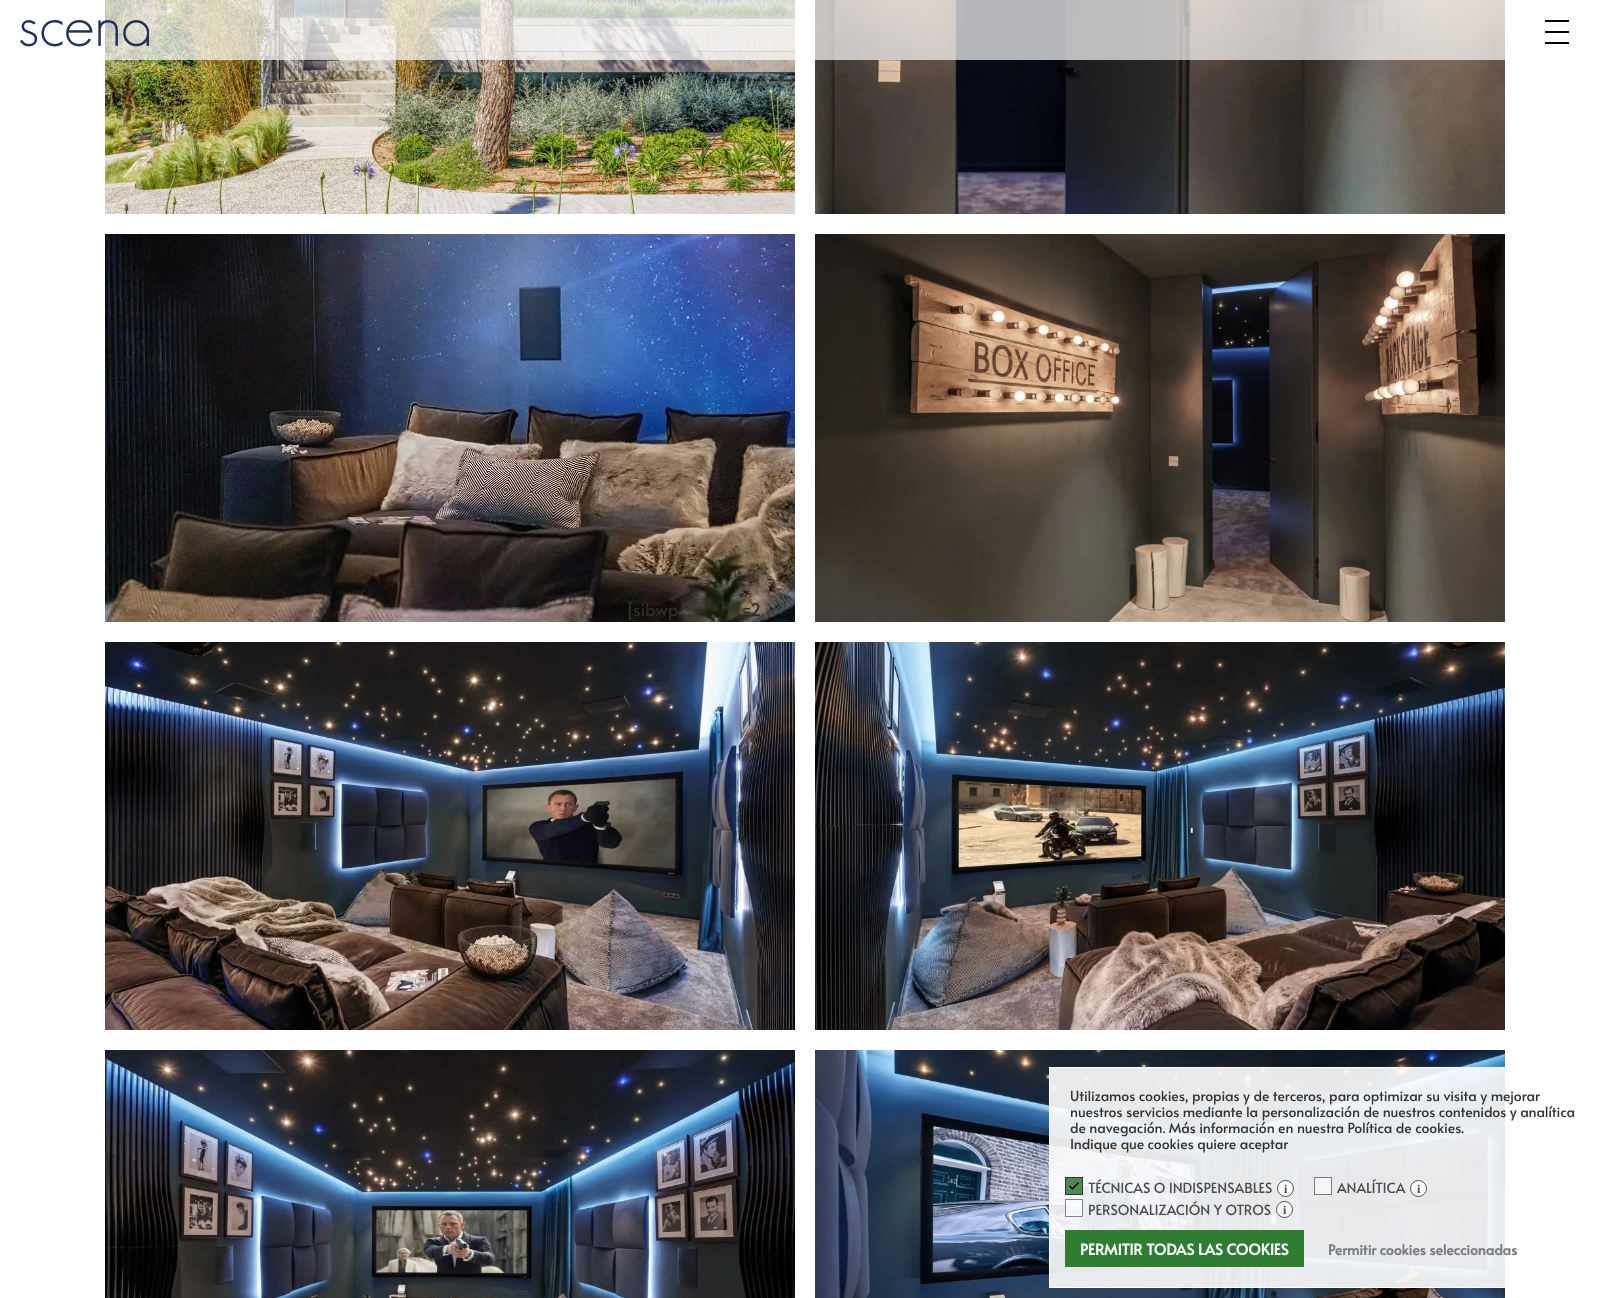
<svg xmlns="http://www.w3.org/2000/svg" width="1609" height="1298">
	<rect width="100%" height="100%" fill="#FFFFFF" />
	<image x="105" y="0" width="690" height="214" href="assets/img2.png" />
	<image x="815" y="0" width="690" height="214" href="assets/img3.png" />
	<rect x="105" y="0" width="1400" height="60" fill="#FFFFFF" fill-opacity="0.7" />
	<image x="20" y="20" width="140" height="27" href="assets/img1.png" />
	<rect x="1545" y="20" width="24" height="2" fill="#000000" />
	<rect x="1545" y="31" width="24" height="2" fill="#000000" />
	<rect x="1545" y="42" width="24" height="2" fill="#000000" />
	<image x="105" y="234" width="690" height="388" href="assets/img4.png" />
	<image x="815" y="234" width="690" height="388" href="assets/img5.png" />
	<image x="105" y="642" width="690" height="388" href="assets/img6.png" />
	<image x="815" y="642" width="690" height="388" href="assets/img7.png" />
	<image x="105" y="1050" width="690" height="248" href="assets/img8.png" />
	<image x="815" y="1050" width="690" height="248" href="assets/img9.png" />
	<g font-family="Alata" font-size="17.5" fill="#322D25">
		<text x="626" y="616">[sibwp</text>
		<text x="742" y="616">=2</text>
	</g>
	<rect x="1050" y="1068" width="455" height="219" fill="#FFFFFF" fill-opacity="0.9" />
	<rect x="1049.5" y="1067.5" width="549" height="220" fill="none" stroke="#FFFFFF" />
	<g font-family="Alata" font-size="14" fill="#333333">
		<text x="1070" y="1101">Utilizamos cookies, propias y de terceros, para optimizar su visita y mejorar</text>
		<text x="1070" y="1117">nuestros servicios mediante la personalización de nuestros contenidos y analítica</text>
		<text x="1070" y="1133">de navegación. Más información en nuestra Política de cookies.</text>
		<text x="1070" y="1149">Indique que cookies quiere aceptar</text>
	</g>
	<rect x="1066" y="1178" width="16" height="16" fill="#508852" />
	<image x="1069" y="1182" width="10" height="8" href="assets/img10.png" />
	<rect x="1065.5" y="1177.5" width="17" height="17" fill="none" stroke="#333333" />
	<text x="1088" y="1193" font-family="Alata" font-size="14" fill="#4C4C4D">TÉCNICAS O INDISPENSABLES</text>
	<circle cx="1285.5" cy="1188.5" r="8.5" fill="#FFFFFF" fill-opacity="0.8" />
	<circle cx="1285.5" cy="1188.5" r="8" fill="none" stroke="#242424" stroke-opacity="0.8" />
	<text x="1284" y="1193" font-family="Liberation Serif" font-size="12" font-weight="700" fill="#4C4C4D">i</text>
	<rect x="1314.5" y="1177.5" width="17" height="17" fill="#F6F6F7" stroke="#7B7C7D" />
	<text x="1337" y="1193" font-family="Alata" font-size="14" fill="#4C4C4D">ANALÍTICA</text>
	<circle cx="1418.5" cy="1188.5" r="8.5" fill="#FBFBFB" />
	<circle cx="1418.5" cy="1188.5" r="8" fill="none" stroke="#242424" stroke-opacity="0.8" />
	<text x="1417" y="1193" font-family="Liberation Serif" font-size="12" font-weight="700" fill="#4C4C4D">i</text>
	<rect x="1065" y="1199" width="18" height="18" fill="#FFFFFF" fill-opacity="0.6" />
	<rect x="1065.5" y="1199.5" width="17" height="17" fill="none" stroke="#333333" stroke-opacity="0.6" />
	<text x="1088" y="1215" font-family="Alata" font-size="14" fill="#4C4C4D">PERSONALIZACIÓN Y OTROS</text>
	<circle cx="1284.5" cy="1209.5" r="8.5" fill="#FFFFFF" fill-opacity="0.8" />
	<circle cx="1284.5" cy="1209.5" r="8" fill="none" stroke="#242424" stroke-opacity="0.8" />
	<text x="1283" y="1214" font-family="Liberation Serif" font-size="12" font-weight="700" fill="#4C4C4D">i</text>
	<rect x="1065" y="1230" width="239" height="37" fill="#2E7D32" />
	<text x="1080" y="1255" font-family="Alata" font-size="15" font-weight="700" fill="#FFFFFF">PERMITIR TODAS LAS COOKIES</text>
	<text x="1328" y="1255" font-family="Alata" font-size="14" font-weight="700" fill="#7B7C7D">Permitir cookies seleccionadas</text>
</svg>
